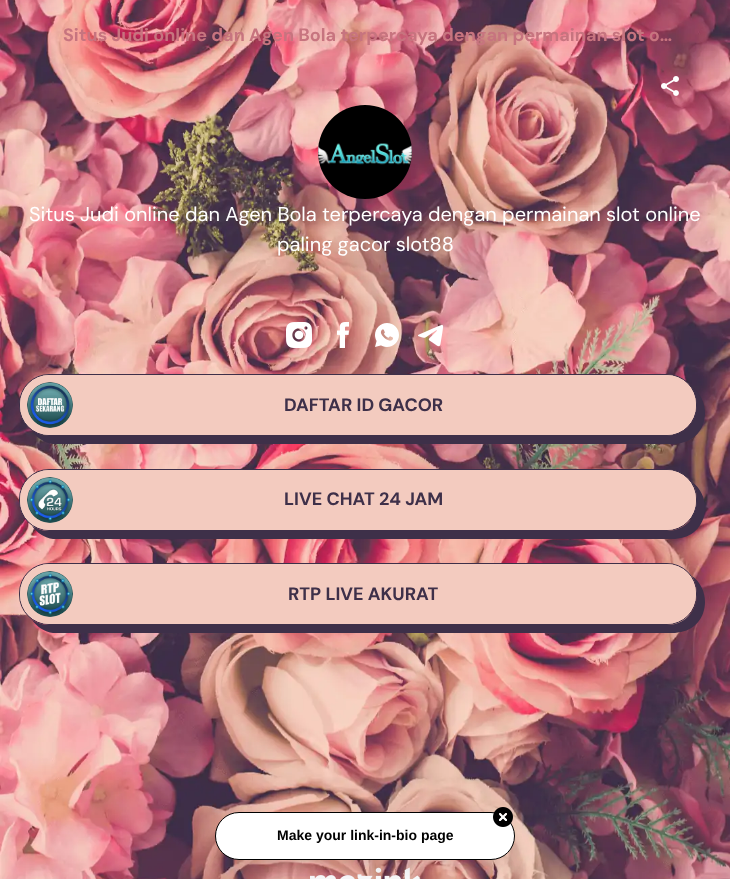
<svg xmlns="http://www.w3.org/2000/svg" width="730" height="879">
	<rect width="100%" height="100%" fill="#FFFFFF" />
	<image x="0" y="0" width="730" height="879" href="assets/img1.png" />
	<text x="63" y="41" font-family="DM Sans" font-size="18" font-weight="700" fill="#C7747F">Situs Judi online dan Agen Bola terpercaya dengan permainan slot o…</text>
	<image x="661" y="76" width="18" height="20" href="assets/img2.png" />
	<image x="318" y="105" width="94" height="94" href="assets/img3.png" />
	<g font-family="DM Sans" font-size="20" fill="#FFFFFF">
		<text x="29" y="221">Situs Judi online dan Agen Bola terpercaya dengan permainan slot online</text>
		<text x="277" y="251">paling gacor slot88</text>
	</g>
	<image x="286" y="322" width="26" height="26" href="assets/img4.png" />
	<image x="337" y="322" width="12" height="26" href="assets/img5.png" />
	<image x="375" y="323" width="24" height="24" href="assets/img6.png" />
	<image x="418" y="325" width="26" height="22" href="assets/img7.png" />
	<path d="M32 431C37 438 45 443 53 444H675L681 443C708 438 713 402 692 387C695 392 697 398 697 404V406C697 423 684 436 667 436H49C43 436 37 434 32 431Z" fill="#3E3049" />
	<rect x="19.5" y="374.5" width="677" height="61" rx="29.5" fill="#F3CBBF" stroke="#3E3049" />
	<rect x="20" y="375" width="676" height="60" rx="30" fill="#F3CBBF" />
	<image x="27" y="382" width="46" height="46" href="assets/img8.png" />
	<text x="284" y="411" font-family="DM Sans" font-size="18" font-weight="700" fill="#3E3049">DAFTAR ID GACOR</text>
	<path d="M32 526C37 533 45 538 53 539H675L681 538C708 533 713 497 692 482C695 487 697 493 697 499V501C697 518 684 531 667 531H49C43 531 37 529 32 526Z" fill="#3E3049" />
	<rect x="19.5" y="469.5" width="677" height="61" rx="29.5" fill="#F3CBBF" stroke="#3E3049" />
	<rect x="20" y="470" width="676" height="60" rx="30" fill="#F3CBBF" />
	<image x="27" y="477" width="46" height="46" href="assets/img9.png" />
	<text x="284" y="505" font-family="DM Sans" font-size="18" font-weight="700" fill="#3E3049">LIVE CHAT 24 JAM</text>
	<path d="M32 620C37 627 45 632 53 633H675L681 632C708 627 713 591 692 576C695 581 697 587 697 593V595C697 612 684 625 667 625H49C43 625 37 623 32 620Z" fill="#3E3049" />
	<rect x="19.5" y="563.5" width="677" height="61" rx="29.5" fill="#F3CBBF" stroke="#3E3049" />
	<rect x="20" y="564" width="676" height="60" rx="30" fill="#F3CBBF" />
	<image x="27" y="571" width="46" height="46" href="assets/img10.png" />
	<text x="288" y="600" font-family="DM Sans" font-size="18" font-weight="700" fill="#3E3049">RTP LIVE AKURAT</text>
	<image x="310" y="867" width="111" height="12" href="assets/img12.png" />
	<rect x="215" y="826" width="300" height="48" rx="24" fill="#191F3D" fill-opacity="0.1" filter="blur(14px)" />
	<rect x="215.5" y="812.5" width="299" height="47" rx="23.5" fill="#FFFFFF" stroke="#000000" />
	<image x="493" y="807" width="20" height="20" href="assets/img11.png" />
	<text x="277" y="840" font-family="Arimo" font-size="14" font-weight="700" fill="#000000">Make your link-in-bio page</text>
</svg>
